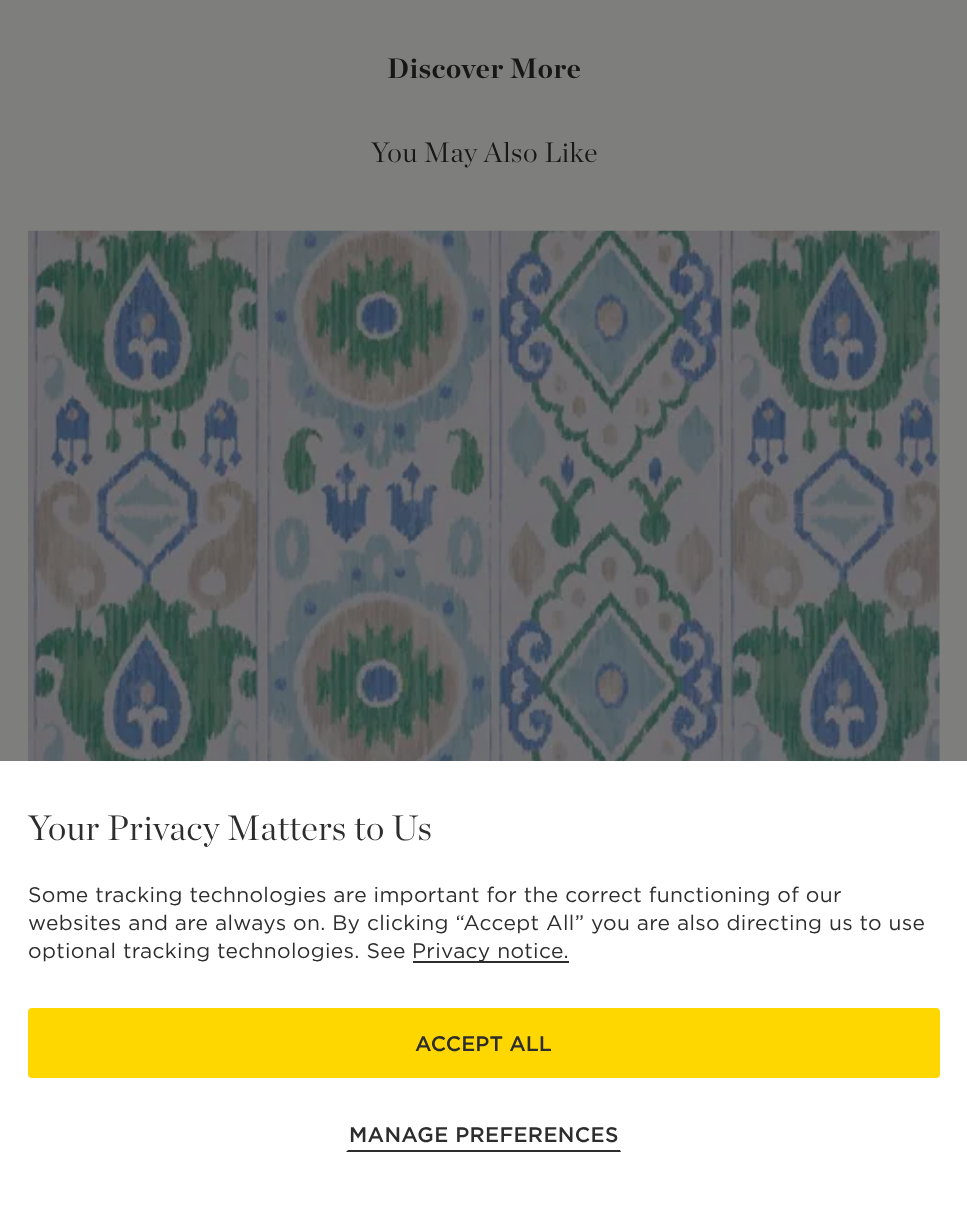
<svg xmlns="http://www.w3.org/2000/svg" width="967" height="1206">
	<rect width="100%" height="100%" fill="#7E7E7C" />
	<text x="387" y="78" font-family="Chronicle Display" font-size="28" font-weight="700" letter-spacing="0.6" fill="#171717">Discover More</text>
	<text x="371" y="162" font-family="Chronicle Display" font-size="28" font-weight="300" letter-spacing="0.6" fill="#171717">You May Also Like</text>
	<image x="28" y="230" width="912" height="531" href="assets/img1.png" />
	<rect x="0" y="761" width="967" height="445" fill="#FFFFFF" />
	<text x="28" y="840" font-family="Chronicle Display" font-size="35" font-weight="300" letter-spacing="0.5" fill="#2D2D2D">Your Privacy Matters to Us</text>
	<g font-family="Gotham" font-size="21" letter-spacing="0.32" fill="#2D2D2D">
		<text x="28" y="902">Some tracking technologies are important for the correct functioning of our</text>
		<text x="28" y="930">websites and are always on. By clicking “Accept All” you are also directing us to use</text>
		<text x="28" y="958">optional tracking technologies. See</text>
	</g>
	<rect x="413" y="961" width="156" height="2" fill="#2D2D2D" />
	<text x="412" y="958" font-family="Gotham" font-size="21" letter-spacing="0.32" fill="#2D2D2D">Privacy notice.</text>
	<rect x="28" y="1008" width="912" height="70" rx="4" fill="#FFD700" />
	<text x="415" y="1051" font-family="Gotham" font-size="21" font-weight="500" fill="#2D2D2D">ACCEPT ALL</text>
	<path d="M621 1152H346L348 1150H620Z" fill="#2D2D2D" />
	<text x="349" y="1142" font-family="Gotham" font-size="21" font-weight="500" letter-spacing="0.32" fill="#2D2D2D">MANAGE PREFERENCES</text>
</svg>
